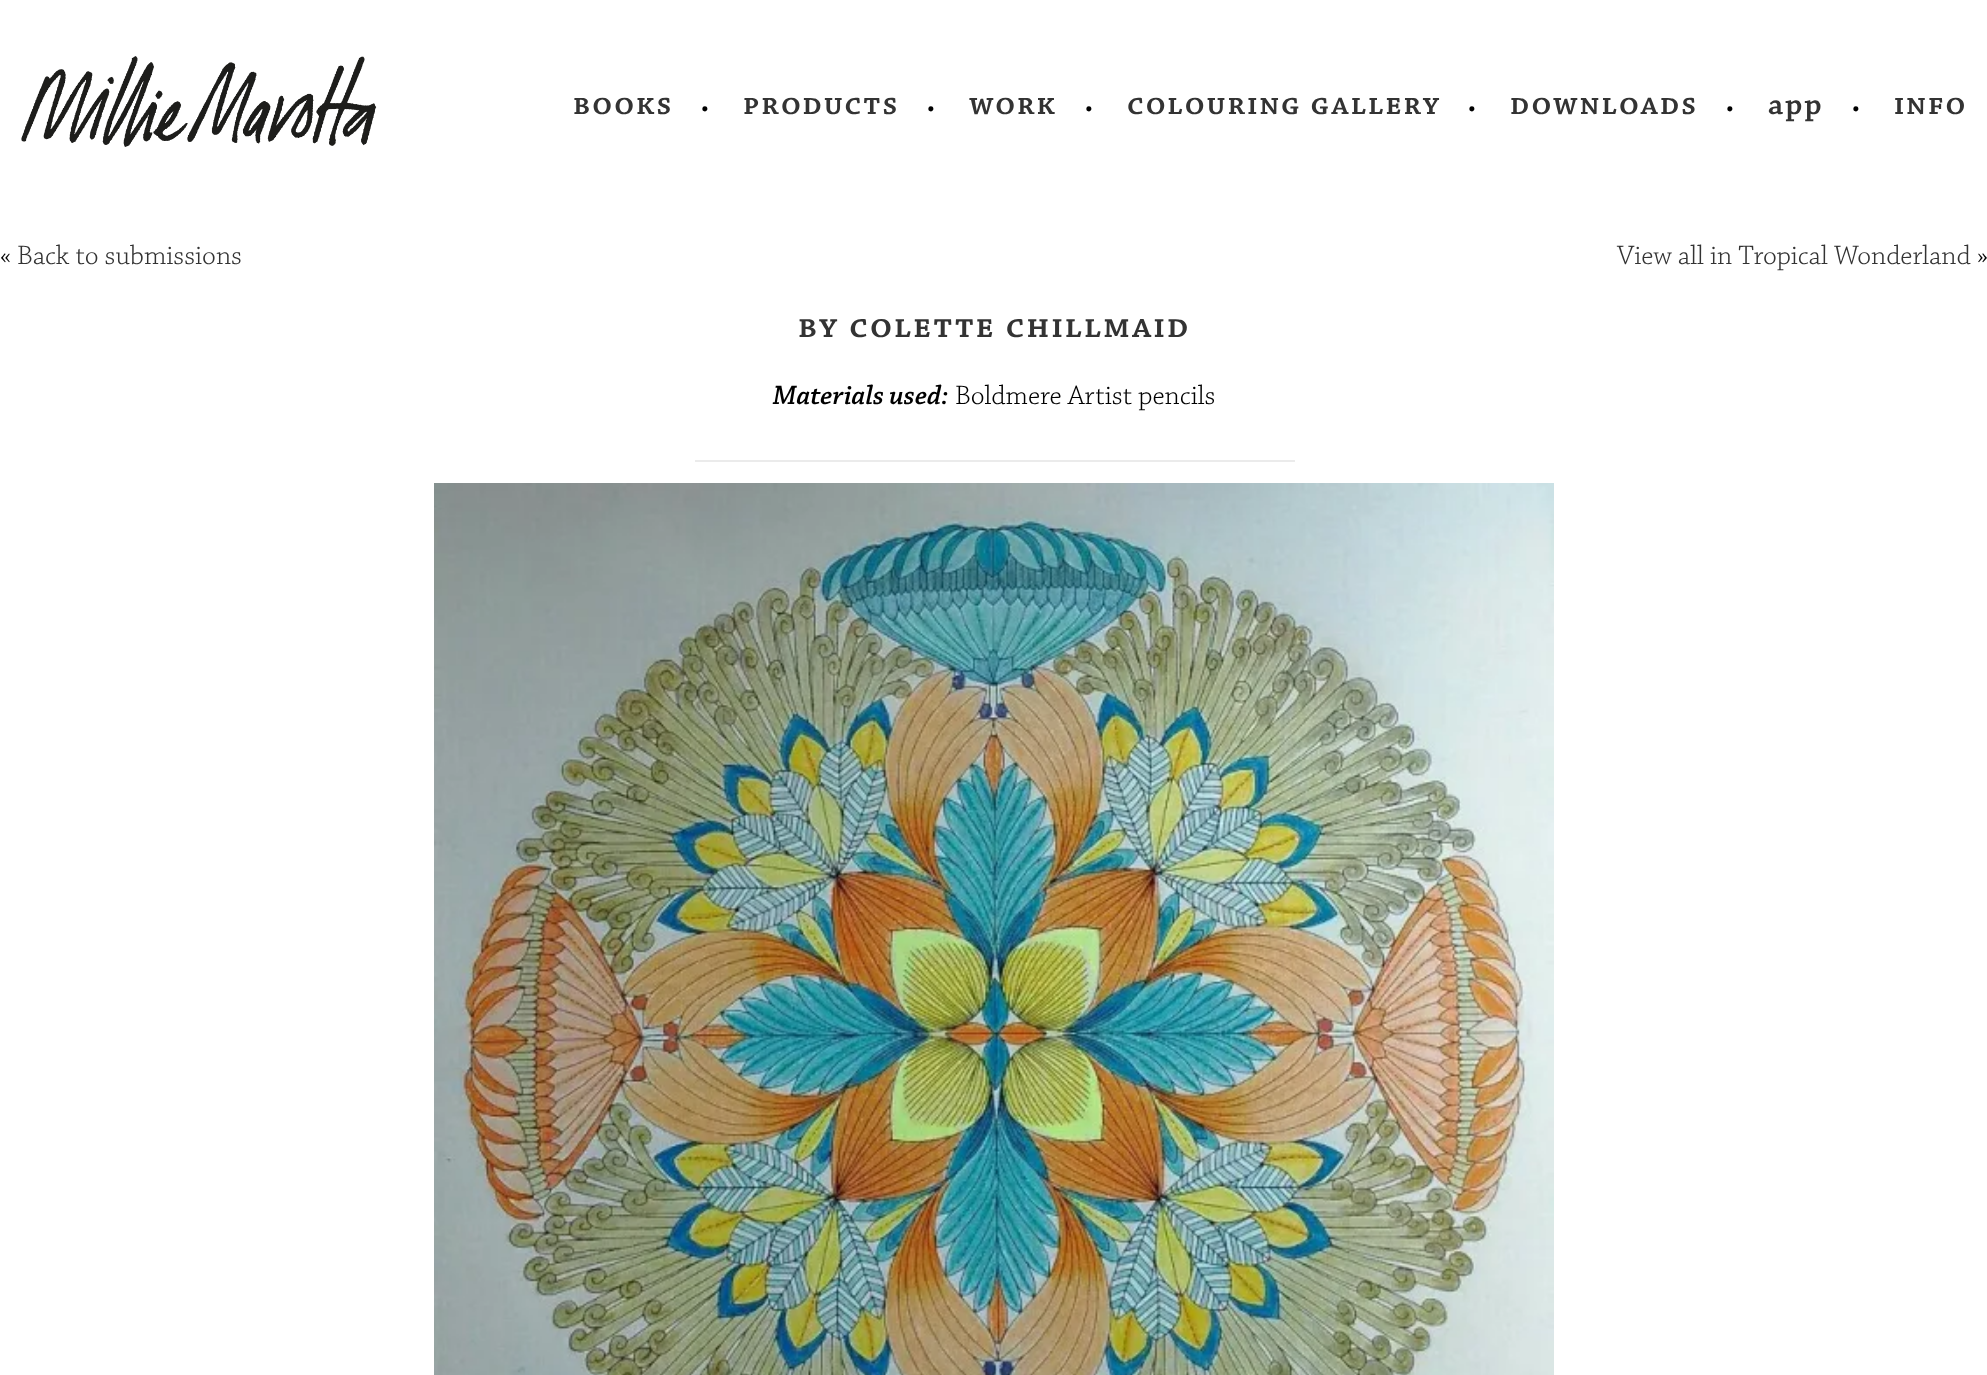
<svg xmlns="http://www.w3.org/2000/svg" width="1987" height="1375">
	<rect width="100%" height="100%" fill="#FFFFFF" />
	<image x="21" y="56" width="356" height="91" href="assets/img1.png" />
	<text x="573" y="114" font-family="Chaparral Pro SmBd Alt" font-size="31.5" font-weight="600" letter-spacing="2" fill="#333333">books</text>
	<text x="701" y="116" font-family="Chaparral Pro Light" font-size="28" font-weight="300" fill="#000000">•</text>
	<text x="743" y="114" font-family="Chaparral Pro SmBd Alt" font-size="31.5" font-weight="600" letter-spacing="2" fill="#333333">products</text>
	<text x="927" y="116" font-family="Chaparral Pro Light" font-size="28" font-weight="300" fill="#000000">•</text>
	<text x="969" y="114" font-family="Chaparral Pro SmBd Alt" font-size="31.5" font-weight="600" letter-spacing="2" fill="#333333">work</text>
	<text x="1085" y="116" font-family="Chaparral Pro Light" font-size="28" font-weight="300" fill="#000000">•</text>
	<text x="1127" y="114" font-family="Chaparral Pro SmBd Alt" font-size="31.5" font-weight="600" letter-spacing="2" fill="#333333">colouring gallery</text>
	<text x="1468" y="116" font-family="Chaparral Pro Light" font-size="28" font-weight="300" fill="#000000">•</text>
	<text x="1510" y="114" font-family="Chaparral Pro SmBd Alt" font-size="31.5" font-weight="600" letter-spacing="2" fill="#333333">downloads</text>
	<text x="1726" y="116" font-family="Chaparral Pro Light" font-size="28" font-weight="300" fill="#000000">•</text>
	<text x="1768" y="114" font-family="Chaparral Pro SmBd" font-size="31.5" font-weight="600" letter-spacing="2" fill="#333333">app</text>
	<text x="1852" y="116" font-family="Chaparral Pro Light" font-size="28" font-weight="300" fill="#000000">•</text>
	<text x="1894" y="114" font-family="Chaparral Pro SmBd Alt" font-size="31.5" font-weight="600" letter-spacing="2" fill="#333333">info</text>
	<text x="0" y="264" font-family="Chaparral Pro Light" font-size="28" font-weight="300" fill="#000000">«</text>
	<g font-family="Chaparral Pro Light" font-size="28" font-weight="300" fill="#333333">
		<text x="17" y="264">Back to submissions</text>
		<text x="1617" y="264">View all in Tropical Wonderland</text>
	</g>
	<text x="1977" y="264" font-family="Chaparral Pro Light" font-size="28" font-weight="300" fill="#000000">»</text>
	<text x="798" y="337" font-family="Chaparral Pro SmBd Alt" font-size="35" font-weight="600" letter-spacing="2.2" fill="#333333">by colette chillmaid</text>
	<text x="773" y="404" font-family="Chaparral Pro SmBd" font-size="28" font-weight="600" font-style="italic" fill="#000000">Materials used:</text>
	<text x="955" y="404" font-family="Chaparral Pro Light" font-size="28" font-weight="300" fill="#000000">Boldmere Artist pencils</text>
	<rect x="695" y="460" width="600" height="2" fill="#EBEBEB" />
	<image x="434" y="483" width="1120" height="892" href="assets/img2.png" />
</svg>
